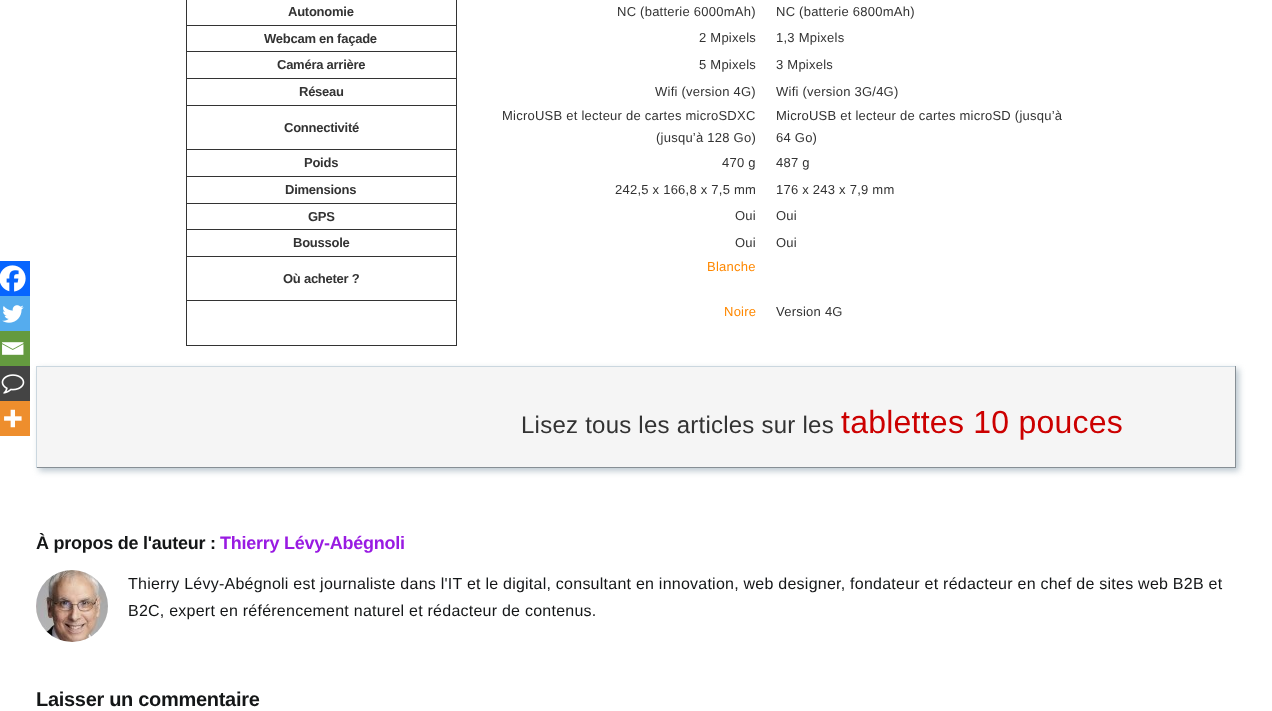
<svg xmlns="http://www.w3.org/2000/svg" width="1272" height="711">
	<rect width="100%" height="100%" fill="#FFFFFF" />
	<text x="288" y="16" font-family="Liberation Sans" font-size="13" font-weight="700" letter-spacing="-0.25" fill="#333333">Autonomie</text>
	<g font-family="Liberation Sans" font-size="13" letter-spacing="0.24" fill="#333333">
		<text x="617" y="16">NC (batterie 6000mAh)</text>
		<text x="776" y="16">NC (batterie 6800mAh)</text>
	</g>
	<rect x="186" y="25" width="271" height="1" fill="#333333" />
	<rect x="186" y="51" width="271" height="1" fill="#333333" />
	<rect x="186" y="78" width="271" height="1" fill="#333333" />
	<rect x="186" y="105" width="271" height="1" fill="#333333" />
	<rect x="186" y="149" width="271" height="1" fill="#333333" />
	<rect x="186" y="176" width="271" height="1" fill="#333333" />
	<rect x="186" y="203" width="271" height="1" fill="#333333" />
	<rect x="186" y="229" width="271" height="1" fill="#333333" />
	<rect x="186" y="256" width="271" height="1" fill="#333333" />
	<rect x="186" y="300" width="271" height="1" fill="#333333" />
	<rect x="456" y="300" width="1" height="46" fill="#333333" />
	<rect x="456" y="256" width="1" height="45" fill="#333333" />
	<rect x="456" y="229" width="1" height="28" fill="#333333" />
	<rect x="456" y="203" width="1" height="27" fill="#333333" />
	<rect x="456" y="176" width="1" height="28" fill="#333333" />
	<rect x="456" y="149" width="1" height="28" fill="#333333" />
	<rect x="456" y="105" width="1" height="45" fill="#333333" />
	<rect x="456" y="78" width="1" height="28" fill="#333333" />
	<rect x="456" y="51" width="1" height="28" fill="#333333" />
	<rect x="456" y="0" width="1" height="52" fill="#333333" />
	<rect x="186" y="345" width="271" height="1" fill="#333333" />
	<rect x="186" y="300" width="1" height="46" fill="#333333" />
	<rect x="186" y="256" width="1" height="45" fill="#333333" />
	<rect x="186" y="229" width="1" height="28" fill="#333333" />
	<rect x="186" y="203" width="1" height="27" fill="#333333" />
	<rect x="186" y="176" width="1" height="28" fill="#333333" />
	<rect x="186" y="149" width="1" height="28" fill="#333333" />
	<rect x="186" y="105" width="1" height="45" fill="#333333" />
	<rect x="186" y="78" width="1" height="28" fill="#333333" />
	<rect x="186" y="51" width="1" height="28" fill="#333333" />
	<rect x="186" y="0" width="1" height="52" fill="#333333" />
	<text x="264" y="43" font-family="Liberation Sans" font-size="13" font-weight="700" letter-spacing="-0.25" fill="#333333">Webcam en façade</text>
	<g font-family="Liberation Sans" font-size="13" letter-spacing="0.24" fill="#333333">
		<text x="699" y="42">2 Mpixels</text>
		<text x="776" y="42">1,3 Mpixels</text>
	</g>
	<text x="277" y="69" font-family="Liberation Sans" font-size="13" font-weight="700" letter-spacing="-0.25" fill="#333333">Caméra arrière</text>
	<g font-family="Liberation Sans" font-size="13" letter-spacing="0.24" fill="#333333">
		<text x="699" y="69">5 Mpixels</text>
		<text x="776" y="69">3 Mpixels</text>
	</g>
	<text x="299" y="96" font-family="Liberation Sans" font-size="13" font-weight="700" letter-spacing="-0.25" fill="#333333">Réseau</text>
	<g font-family="Liberation Sans" font-size="13" letter-spacing="0.24" fill="#333333">
		<text x="655" y="96">Wifi (version 4G)</text>
		<text x="776" y="96">Wifi (version 3G/4G)</text>
	</g>
	<text x="284" y="132" font-family="Liberation Sans" font-size="13" font-weight="700" letter-spacing="-0.25" fill="#333333">Connectivité</text>
	<g font-family="Liberation Sans" font-size="13" letter-spacing="0.24" fill="#333333">
		<text x="502" y="120">MicroUSB et lecteur de cartes microSDXC</text>
		<text x="656" y="142">(jusqu’à 128 Go)</text>
		<text x="776" y="120">MicroUSB et lecteur de cartes microSD (jusqu’à</text>
		<text x="776" y="142">64 Go)</text>
	</g>
	<text x="304" y="167" font-family="Liberation Sans" font-size="13" font-weight="700" letter-spacing="-0.25" fill="#333333">Poids</text>
	<g font-family="Liberation Sans" font-size="13" letter-spacing="0.24" fill="#333333">
		<text x="722" y="167">470 g</text>
		<text x="776" y="167">487 g</text>
	</g>
	<text x="285" y="194" font-family="Liberation Sans" font-size="13" font-weight="700" letter-spacing="-0.25" fill="#333333">Dimensions</text>
	<g font-family="Liberation Sans" font-size="13" letter-spacing="0.24" fill="#333333">
		<text x="615" y="194">242,5 x 166,8 x 7,5 mm</text>
		<text x="776" y="194">176 x 243 x 7,9 mm</text>
	</g>
	<text x="308" y="221" font-family="Liberation Sans" font-size="13" font-weight="700" letter-spacing="-0.25" fill="#333333">GPS</text>
	<g font-family="Liberation Sans" font-size="13" letter-spacing="0.24" fill="#333333">
		<text x="735" y="220">Oui</text>
		<text x="776" y="220">Oui</text>
	</g>
	<text x="293" y="247" font-family="Liberation Sans" font-size="13" font-weight="700" letter-spacing="-0.25" fill="#333333">Boussole</text>
	<g font-family="Liberation Sans" font-size="13" letter-spacing="0.24" fill="#333333">
		<text x="735" y="247">Oui</text>
		<text x="776" y="247">Oui</text>
	</g>
	<text x="707" y="271" font-family="Liberation Sans" font-size="13" letter-spacing="0.24" fill="#FF8800">Blanche</text>
	<text x="283" y="283" font-family="Liberation Sans" font-size="13" font-weight="700" letter-spacing="-0.25" fill="#333333">Où acheter ?</text>
	<text x="724" y="316" font-family="Liberation Sans" font-size="13" letter-spacing="0.24" fill="#FF8800">Noire</text>
	<text x="776" y="316" font-family="Liberation Sans" font-size="13" letter-spacing="0.24" fill="#333333">Version 4G</text>
	<rect x="0" y="261" width="30" height="35" fill="#0765FE" />
	<image x="0" y="265" width="26" height="27" href="assets/img1.png" />
	<rect x="0" y="296" width="30" height="35" fill="#55ACEE" />
	<image x="2" y="305" width="22" height="18" href="assets/img2.png" />
	<rect x="39" y="369" width="1200" height="102" fill="#BBC7CF" filter="blur(3px)" />
	<rect x="0" y="331" width="30" height="35" fill="#649A3F" />
	<image x="2" y="342" width="22" height="13" href="assets/img3.png" />
	<rect x="0" y="366" width="30" height="35" fill="#444444" />
	<image x="1" y="374" width="24" height="20" href="assets/img4.png" />
	<rect x="0" y="401" width="30" height="35" fill="#EE8E2D" />
	<image x="4" y="409" width="18" height="19" href="assets/img5.png" />
	<rect x="37" y="367" width="1198" height="100" fill="#F5F5F5" />
	<rect x="36" y="366" width="1200" height="1" fill="#CBD7DF" />
	<rect x="1235" y="366" width="1" height="102" fill="#878F95" />
	<rect x="36" y="467" width="1200" height="1" fill="#878F95" />
	<rect x="36" y="366" width="1" height="102" fill="#CBD7DF" />
	<text x="521" y="433" font-family="Liberation Sans" font-size="24" letter-spacing="0.24" fill="#333333">Lisez tous les articles sur les</text>
	<text x="841" y="433" font-family="Liberation Sans" font-size="32" letter-spacing="0.24" fill="#CC0000">tablettes 10 pouces</text>
	<text x="36" y="549" font-family="Liberation Sans" font-size="18" font-weight="700" letter-spacing="-0.25" fill="#141617">À propos de l'auteur :</text>
	<text x="220" y="549" font-family="Liberation Sans" font-size="18" font-weight="700" letter-spacing="-0.25" fill="#991BE2">Thierry Lévy-Abégnoli</text>
	<image x="36" y="570" width="72" height="72" href="assets/img6.png" />
	<g font-family="Liberation Sans" font-size="16" letter-spacing="0.24" fill="#141617">
		<text x="128" y="589">Thierry Lévy-Abégnoli est journaliste dans l'IT et le digital, consultant en innovation, web designer, fondateur et rédacteur en chef de sites web B2B et</text>
		<text x="128" y="616">B2C, expert en référencement naturel et rédacteur de contenus.</text>
	</g>
	<text x="36" y="706" font-family="Liberation Sans" font-size="20" font-weight="700" letter-spacing="-0.3" fill="#141617">Laisser un commentaire</text>
</svg>
